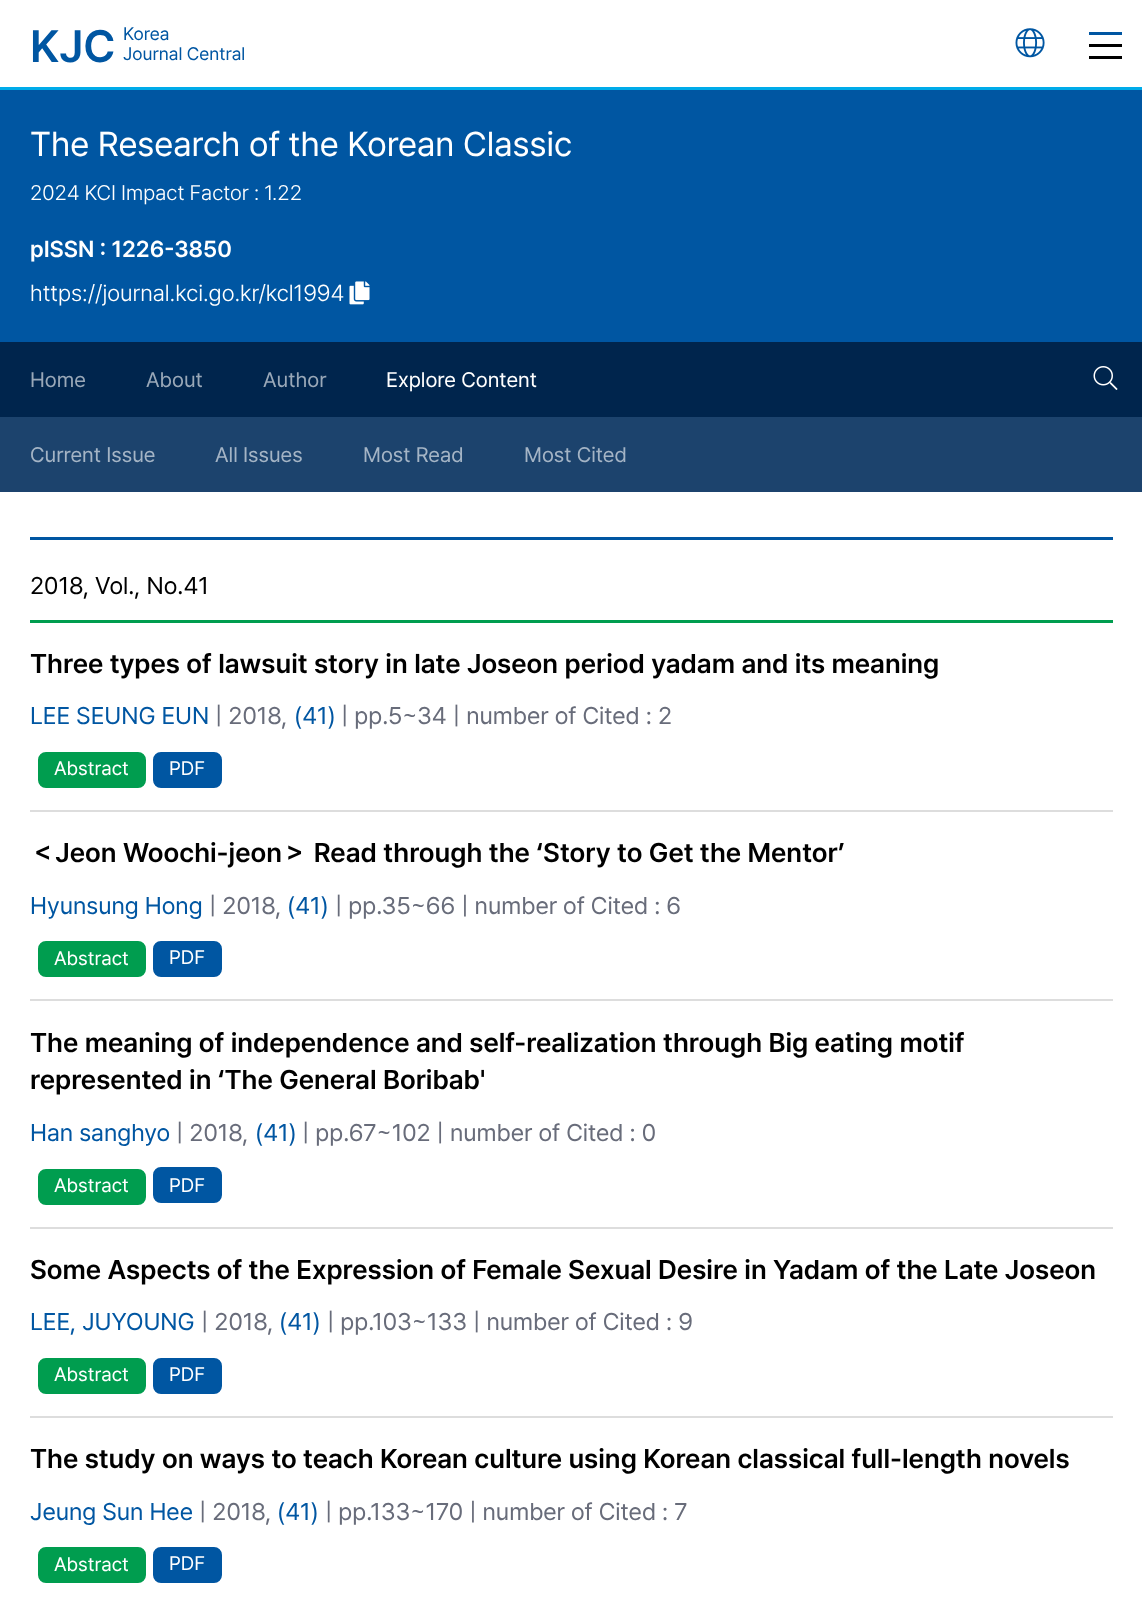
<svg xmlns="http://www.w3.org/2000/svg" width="1142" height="1600">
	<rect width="100%" height="100%" fill="#FFFFFF" />
	<rect x="0" y="87" width="1142" height="3" fill="#00ABE9" />
	<text x="30" y="62" font-family="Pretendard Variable" font-size="45" font-weight="600" fill="#0056A2">KJC</text>
	<g font-family="Pretendard Variable" font-size="18" fill="#0056A2">
		<text x="123" y="40">Korea</text>
		<text x="123" y="60">Journal Central</text>
	</g>
	<image x="1015" y="28" width="30" height="30" href="assets/img1.png" />
	<rect x="1089" y="44" width="33" height="3" fill="#000000" />
	<rect x="1089" y="32" width="33" height="3" fill="#0056A2" />
	<rect x="1089" y="56" width="33" height="3" fill="#000000" />
	<rect x="0" y="90" width="1142" height="252" fill="#0056A2" />
	<text x="30" y="156" font-family="Pretendard Variable" font-size="34.25" fill="#FFFFFF">The Research of the Korean Classic</text>
	<text x="30" y="200" font-family="Pretendard Variable" font-size="21" font-weight="300" fill="#FFFFFF">2024 KCI Impact Factor : 1.22</text>
	<text x="30" y="257" font-family="Pretendard Variable" font-size="22.9" font-weight="600" fill="#FFFFFF">pISSN : 1226-3850</text>
	<text x="30" y="301" font-family="Pretendard Variable" font-size="22.9" font-weight="300" fill="#FFFFFF">https://journal.kci.go.kr/kcl1994</text>
	<image x="349" y="281" width="21" height="24" href="assets/img2.png" />
	<rect x="0" y="342" width="1142" height="75" fill="#00254D" />
	<g font-family="Pretendard Variable" font-size="21" fill="#99A8B8">
		<text x="30" y="387">Home</text>
		<text x="146" y="387">About</text>
		<text x="263" y="387">Author</text>
	</g>
	<text x="386" y="387" font-family="Pretendard Variable" font-size="21" fill="#FFFFFF">Explore Content</text>
	<image x="1093" y="366" width="25" height="24" href="assets/img3.png" />
	<rect x="0" y="417" width="1142" height="75" fill="#1C436D" />
	<g font-family="Pretendard Variable" font-size="21" fill="#A4B4C5">
		<text x="30" y="462">Current Issue</text>
		<text x="215" y="462">All Issues</text>
		<text x="363" y="462">Most Read</text>
		<text x="524" y="462">Most Cited</text>
	</g>
	<rect x="30" y="537" width="1083" height="3" fill="#0056A2" />
	<text x="30" y="594" font-family="Pretendard Variable" font-size="24" fill="#000000">2018, Vol., No.41</text>
	<rect x="30" y="620" width="1083" height="3" fill="#009D4F" />
	<rect x="30" y="810" width="1083" height="2" fill="#DDDDDD" />
	<text x="30" y="673" font-family="Pretendard Variable" font-size="27" font-weight="600" fill="#000000">Three types of lawsuit story in late Joseon period yadam and its meaning</text>
	<text x="30" y="724" font-family="Pretendard Variable" font-size="24" fill="#0056A2">LEE SEUNG EUN</text>
	<text x="215" y="724" font-family="Pretendard Variable" font-size="24" fill="#686C7A">| 2018,</text>
	<text x="294" y="724" font-family="Pretendard Variable" font-size="24" fill="#0056A2">(41)</text>
	<text x="341" y="724" font-family="Pretendard Variable" font-size="24" fill="#686C7A">| pp.5~34 | number of Cited : 2</text>
	<rect x="39" y="753" width="106" height="34" rx="7" fill="#009D4F" stroke="#009D4F" stroke-width="2" />
	<text x="54" y="775" font-family="Pretendard Variable" font-size="19.5" fill="#FFFFFF">Abstract</text>
	<rect x="154" y="753" width="67" height="34" rx="7" fill="#0056A2" stroke="#0056A2" stroke-width="2" />
	<text x="169" y="775" font-family="Pretendard Variable" font-size="19.5" fill="#FFFFFF">PDF</text>
	<rect x="30" y="999" width="1083" height="2" fill="#DDDDDD" />
	<text x="30" y="862" font-family="Pretendard Variable" font-size="27" font-weight="600" fill="#000000">＜Jeon Woochi-jeon＞ Read through the ‘Story to Get the Mentor’</text>
	<text x="30" y="914" font-family="Pretendard Variable" font-size="24" fill="#0056A2">Hyunsung Hong</text>
	<text x="209" y="914" font-family="Pretendard Variable" font-size="24" fill="#686C7A">| 2018,</text>
	<text x="287" y="914" font-family="Pretendard Variable" font-size="24" fill="#0056A2">(41)</text>
	<text x="335" y="914" font-family="Pretendard Variable" font-size="24" fill="#686C7A">| pp.35~66 | number of Cited : 6</text>
	<rect x="39" y="942" width="106" height="34" rx="7" fill="#009D4F" stroke="#009D4F" stroke-width="2" />
	<text x="54" y="965" font-family="Pretendard Variable" font-size="19.5" fill="#FFFFFF">Abstract</text>
	<rect x="154" y="942" width="67" height="34" rx="7" fill="#0056A2" stroke="#0056A2" stroke-width="2" />
	<text x="169" y="964" font-family="Pretendard Variable" font-size="19.5" fill="#FFFFFF">PDF</text>
	<rect x="30" y="1227" width="1083" height="2" fill="#DDDDDD" />
	<g font-family="Pretendard Variable" font-size="27" font-weight="600" fill="#000000">
		<text x="30" y="1052">The meaning of independence and self-realization through Big eating motif</text>
		<text x="30" y="1089">represented in ‘The General Boribab'</text>
	</g>
	<text x="30" y="1141" font-family="Pretendard Variable" font-size="24" fill="#0056A2">Han sanghyo</text>
	<text x="176" y="1141" font-family="Pretendard Variable" font-size="24" fill="#686C7A">| 2018,</text>
	<text x="255" y="1141" font-family="Pretendard Variable" font-size="24" fill="#0056A2">(41)</text>
	<text x="302" y="1141" font-family="Pretendard Variable" font-size="24" fill="#686C7A">| pp.67~102 | number of Cited : 0</text>
	<rect x="39" y="1170" width="106" height="34" rx="7" fill="#009D4F" stroke="#009D4F" stroke-width="2" />
	<text x="54" y="1192" font-family="Pretendard Variable" font-size="19.5" fill="#FFFFFF">Abstract</text>
	<rect x="154" y="1168" width="67" height="34" rx="7" fill="#0056A2" stroke="#0056A2" stroke-width="2" />
	<text x="169" y="1192" font-family="Pretendard Variable" font-size="19.5" fill="#FFFFFF">PDF</text>
	<rect x="30" y="1416" width="1083" height="2" fill="#DDDDDD" />
	<text x="30" y="1279" font-family="Pretendard Variable" font-size="27" font-weight="600" fill="#000000">Some Aspects of the Expression of Female Sexual Desire in Yadam of the Late Joseon</text>
	<text x="30" y="1330" font-family="Pretendard Variable" font-size="24" fill="#0056A2">LEE, JUYOUNG</text>
	<text x="201" y="1330" font-family="Pretendard Variable" font-size="24" fill="#686C7A">| 2018,</text>
	<text x="279" y="1330" font-family="Pretendard Variable" font-size="24" fill="#0056A2">(41)</text>
	<text x="327" y="1330" font-family="Pretendard Variable" font-size="24" fill="#686C7A">| pp.103~133 | number of Cited : 9</text>
	<rect x="39" y="1359" width="106" height="34" rx="7" fill="#009D4F" stroke="#009D4F" stroke-width="2" />
	<text x="54" y="1381" font-family="Pretendard Variable" font-size="19.5" fill="#FFFFFF">Abstract</text>
	<rect x="154" y="1359" width="67" height="34" rx="7" fill="#0056A2" stroke="#0056A2" stroke-width="2" />
	<text x="169" y="1381" font-family="Pretendard Variable" font-size="19.5" fill="#FFFFFF">PDF</text>
	<text x="30" y="1468" font-family="Pretendard Variable" font-size="27" font-weight="600" fill="#000000">The study on ways to teach Korean culture using Korean classical full-length novels</text>
	<text x="30" y="1520" font-family="Pretendard Variable" font-size="24" fill="#0056A2">Jeung Sun Hee</text>
	<text x="199" y="1520" font-family="Pretendard Variable" font-size="24" fill="#686C7A">| 2018,</text>
	<text x="277" y="1520" font-family="Pretendard Variable" font-size="24" fill="#0056A2">(41)</text>
	<text x="325" y="1520" font-family="Pretendard Variable" font-size="24" fill="#686C7A">| pp.133~170 | number of Cited : 7</text>
	<rect x="39" y="1548" width="106" height="34" rx="7" fill="#009D4F" stroke="#009D4F" stroke-width="2" />
	<text x="54" y="1571" font-family="Pretendard Variable" font-size="19.5" fill="#FFFFFF">Abstract</text>
	<rect x="154" y="1548" width="67" height="34" rx="7" fill="#0056A2" stroke="#0056A2" stroke-width="2" />
	<text x="169" y="1570" font-family="Pretendard Variable" font-size="19.5" fill="#FFFFFF">PDF</text>
</svg>
